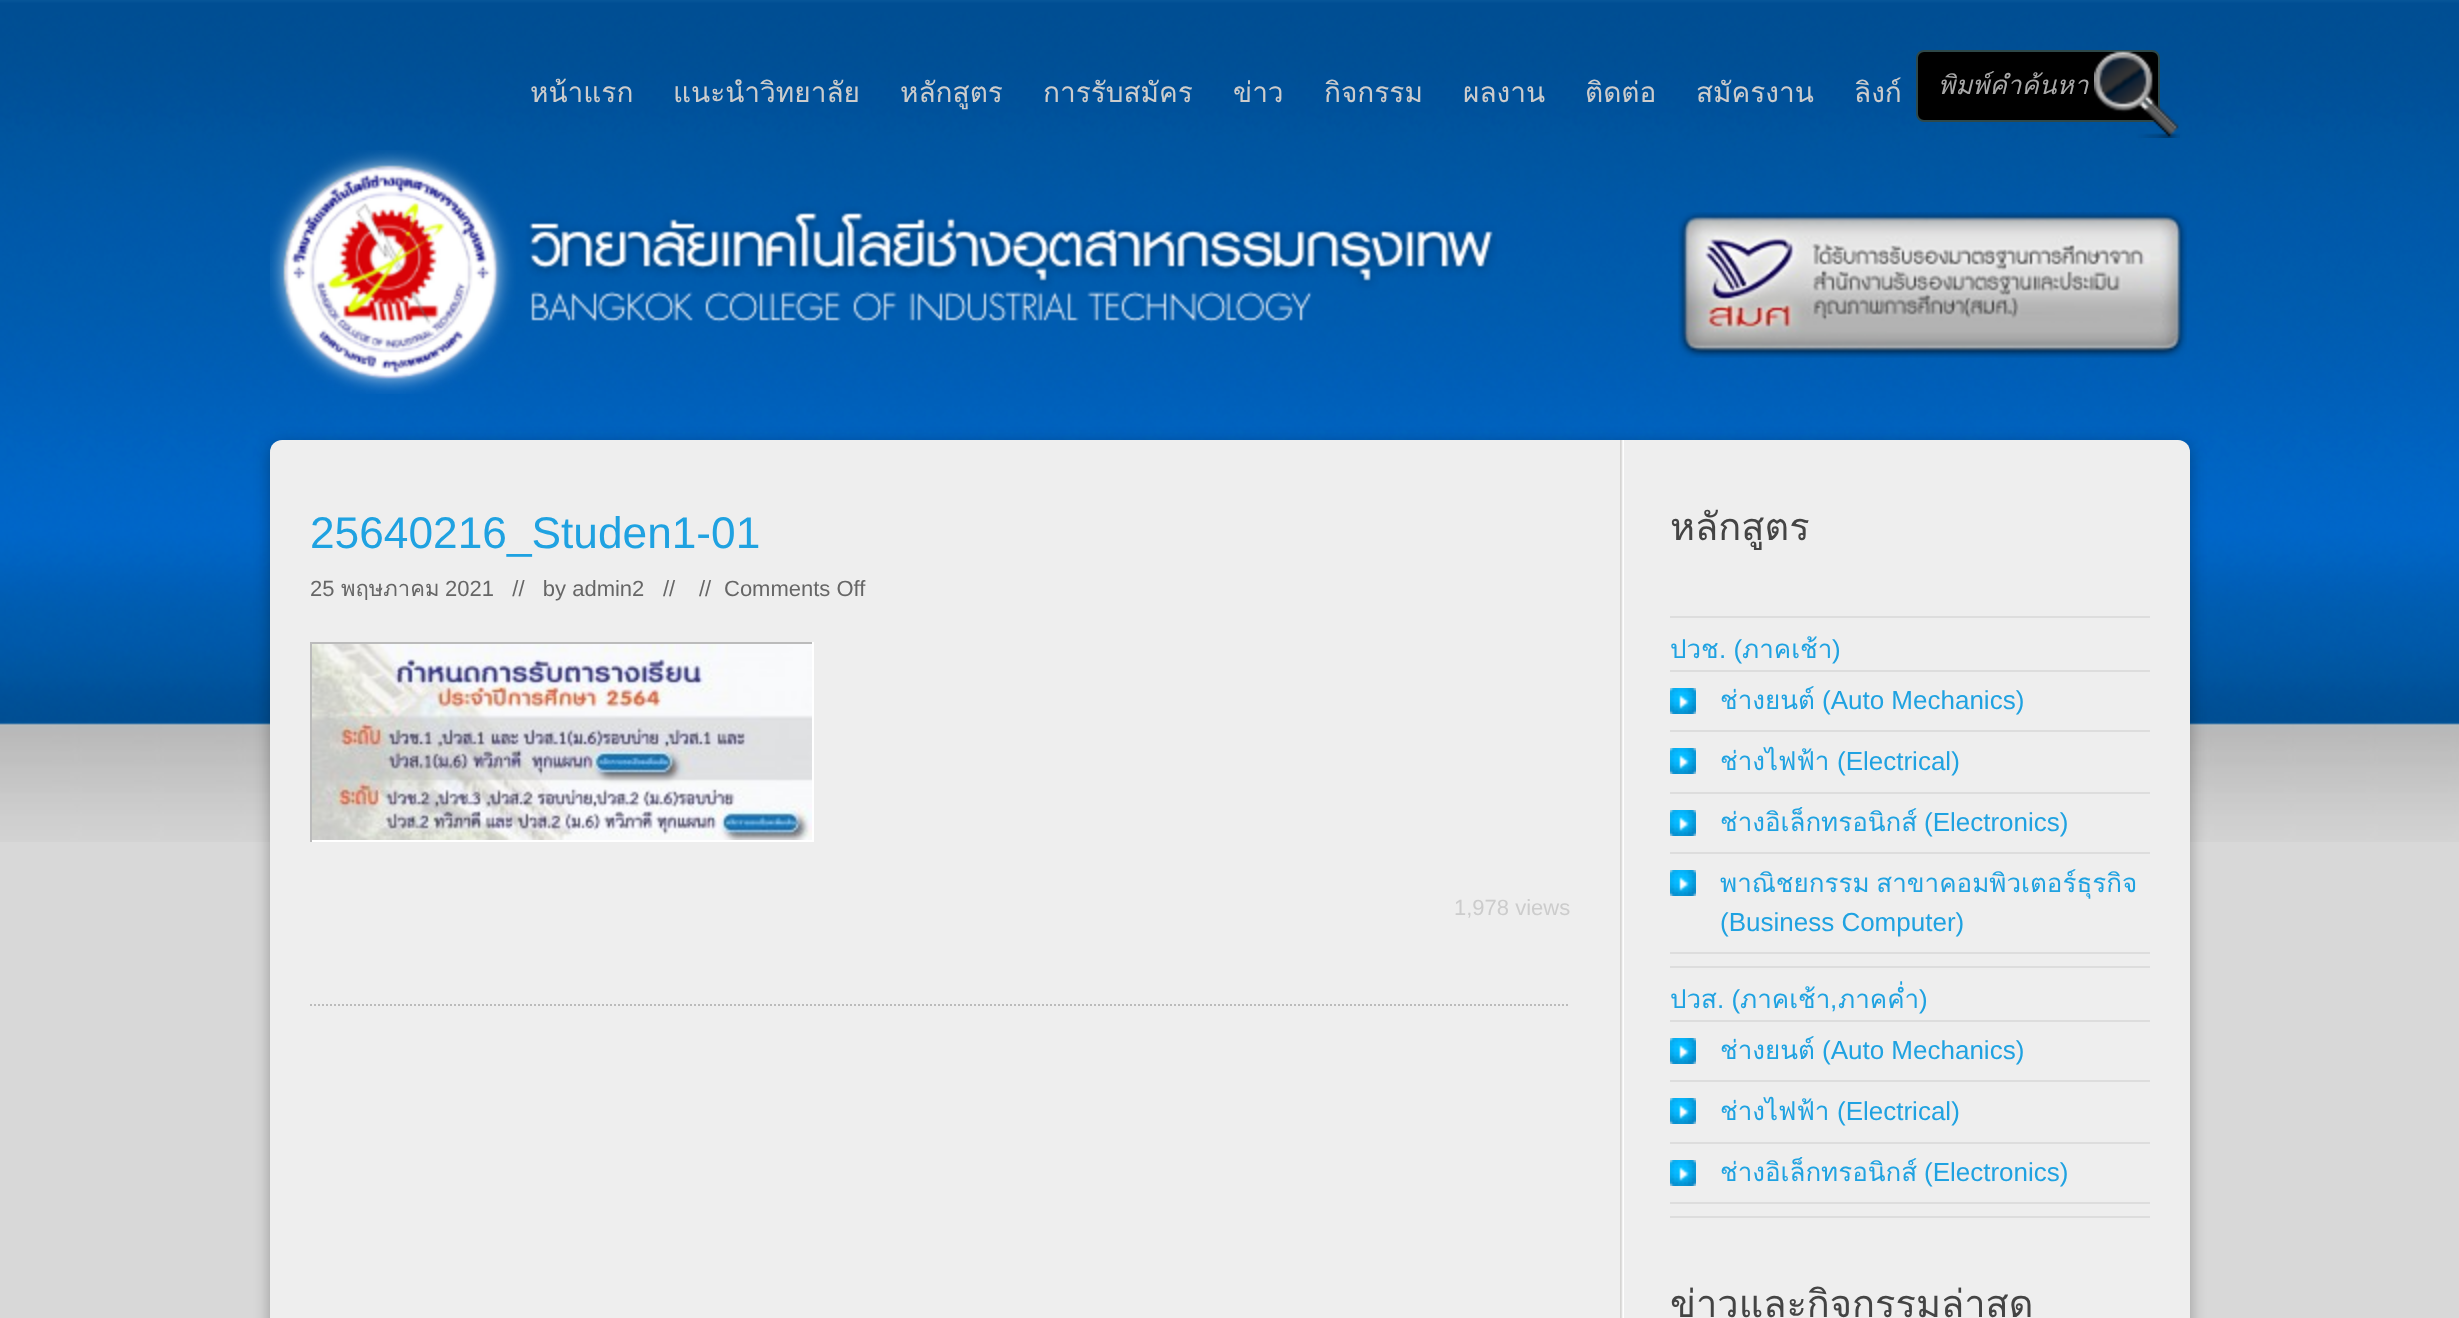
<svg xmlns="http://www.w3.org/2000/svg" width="2459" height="1318">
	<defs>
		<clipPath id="clip1"><rect x="1938" y="64" width="200" height="42" /></clipPath>
	</defs>
	<rect width="100%" height="100%" fill="#D8D8D8" />
	<image x="0" y="0" width="2459" height="842" href="assets/img1.png" />
	<image x="1678" y="212" width="509" height="146" href="assets/img2.png" />
	<g font-family="Loma" font-size="28" fill="#CCCCCC">
		<text x="530" y="102">หน้าแรก</text>
		<text x="673" y="102">แนะนำวิทยาลัย</text>
		<text x="900" y="102">หลักสูตร</text>
		<text x="1043" y="102">การรับสมัคร</text>
		<text x="1233" y="102">ข่าว</text>
		<text x="1324" y="102">กิจกรรม</text>
		<text x="1463" y="102">ผลงาน</text>
		<text x="1585" y="102">ติดต่อ</text>
		<text x="1696" y="102">สมัครงาน</text>
		<text x="1854" y="102">ลิงก์</text>
	</g>
	<rect x="1917" y="51" width="242" height="70" rx="7" fill="#000000" stroke="#2E4849" stroke-width="2" />
	<g clip-path="url(#clip1)">
		<text x="1938" y="94" font-family="Loma" font-size="26" font-style="italic" fill="#A8A8A8">พิมพ์คำค้นหา</text>
	</g>
	<image x="2094" y="50" width="86" height="88" href="assets/img3.png" />
	<image x="270" y="150" width="1227" height="244" href="assets/img4.png" />
	<rect x="270" y="444" width="1920" height="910" rx="12" fill="#000000" fill-opacity="0.3" filter="blur(8px)" />
	<rect x="270" y="440" width="1920" height="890" rx="12" fill="#EEEEEE" />
	<image x="1620" y="440" width="4" height="878" href="assets/img5.png" />
	<path d="M310 1005H1570" fill="none" stroke="#BBBBBB" stroke-width="2" stroke-dasharray="2 2" />
	<text x="310" y="548" font-family="Liberation Sans" font-size="44.25" fill="#1FA2E1">25640216_Studen1-01</text>
	<text x="310" y="596" font-family="Liberation Sans" font-size="22" fill="#666666">25</text>
	<text x="341" y="596" font-family="Loma" font-size="22" fill="#666666">พฤษภาคม</text>
	<g font-family="Liberation Sans" font-size="22" fill="#666666">
		<text x="445" y="596" xml:space="preserve">2021   //   by admin2</text>
		<text x="663" y="596">//</text>
		<text x="699" y="596">//</text>
		<text x="724" y="596">Comments Off</text>
	</g>
	<rect x="310" y="642" width="504" height="2" fill="#BBBBBB" />
	<rect x="812" y="642" width="2" height="200" fill="#FFFFFF" />
	<rect x="310" y="840" width="504" height="2" fill="#FFFFFF" />
	<rect x="310" y="642" width="2" height="200" fill="#BBBBBB" />
	<image x="312" y="644" width="500" height="196" href="assets/img6.png" />
	<text x="1454" y="915" font-family="Liberation Sans" font-size="22" fill="#CCCCCC">1,978 views</text>
	<text x="1670" y="540" font-family="Loma" font-size="38" fill="#444444">หลักสูตร</text>
	<rect x="1670" y="616" width="480" height="2" fill="#DDDDDD" />
	<rect x="1670" y="966" width="480" height="2" fill="#DDDDDD" />
	<text x="1670" y="658" font-family="Loma" font-size="26" fill="#1FA2E1">ปวช</text>
	<text x="1719" y="658" font-family="Liberation Sans" font-size="26" fill="#1FA2E1">. (</text>
	<text x="1742" y="658" font-family="Loma" font-size="26" fill="#1FA2E1">ภาคเช้า</text>
	<text x="1832" y="658" font-family="Liberation Sans" font-size="26" fill="#1FA2E1">)</text>
	<rect x="1670" y="670" width="480" height="2" fill="#DDDDDD" />
	<image x="1670" y="688" width="26" height="26" href="assets/img7.png" />
	<rect x="1670" y="730" width="480" height="2" fill="#DDDDDD" />
	<text x="1720" y="709" font-family="Loma" font-size="26" fill="#1FA2E1">ช่างยนต์</text>
	<text x="1822" y="709" font-family="Liberation Sans" font-size="26" fill="#1FA2E1">(Auto Mechanics)</text>
	<image x="1670" y="748" width="26" height="26" href="assets/img7.png" />
	<rect x="1670" y="792" width="480" height="2" fill="#DDDDDD" />
	<text x="1720" y="770" font-family="Loma" font-size="26" fill="#1FA2E1">ช่างไฟฟ้า</text>
	<text x="1837" y="770" font-family="Liberation Sans" font-size="26" fill="#1FA2E1">(Electrical)</text>
	<image x="1670" y="810" width="26" height="26" href="assets/img7.png" />
	<rect x="1670" y="852" width="480" height="2" fill="#DDDDDD" />
	<text x="1720" y="831" font-family="Loma" font-size="26" fill="#1FA2E1">ช่างอิเล็กทรอนิกส์</text>
	<text x="1924" y="831" font-family="Liberation Sans" font-size="26" fill="#1FA2E1">(Electronics)</text>
	<image x="1670" y="870" width="26" height="26" href="assets/img7.png" />
	<rect x="1670" y="952" width="480" height="2" fill="#DDDDDD" />
	<text x="1720" y="892" word-spacing="-2" font-family="Loma" font-size="26" fill="#1FA2E1">พาณิชยกรรม สาขาคอมพิวเตอร์ธุรกิจ</text>
	<text x="1720" y="931" font-family="Liberation Sans" font-size="26" fill="#1FA2E1">(Business Computer)</text>
	<rect x="1670" y="1216" width="480" height="2" fill="#DDDDDD" />
	<text x="1670" y="1008" font-family="Loma" font-size="26" fill="#1FA2E1">ปวส</text>
	<text x="1717" y="1008" font-family="Liberation Sans" font-size="26" fill="#1FA2E1">. (</text>
	<text x="1740" y="1008" font-family="Loma" font-size="26" fill="#1FA2E1">ภาคเช้า</text>
	<text x="1830" y="1008" font-family="Liberation Sans" font-size="26" fill="#1FA2E1">,</text>
	<text x="1838" y="1008" font-family="Loma" font-size="26" fill="#1FA2E1">ภาคค่ำ</text>
	<text x="1919" y="1008" font-family="Liberation Sans" font-size="26" fill="#1FA2E1">)</text>
	<rect x="1670" y="1020" width="480" height="2" fill="#DDDDDD" />
	<image x="1670" y="1038" width="26" height="26" href="assets/img7.png" />
	<rect x="1670" y="1080" width="480" height="2" fill="#DDDDDD" />
	<text x="1720" y="1059" font-family="Loma" font-size="26" fill="#1FA2E1">ช่างยนต์</text>
	<text x="1822" y="1059" font-family="Liberation Sans" font-size="26" fill="#1FA2E1">(Auto Mechanics)</text>
	<image x="1670" y="1098" width="26" height="26" href="assets/img7.png" />
	<rect x="1670" y="1142" width="480" height="2" fill="#DDDDDD" />
	<text x="1720" y="1120" font-family="Loma" font-size="26" fill="#1FA2E1">ช่างไฟฟ้า</text>
	<text x="1837" y="1120" font-family="Liberation Sans" font-size="26" fill="#1FA2E1">(Electrical)</text>
	<image x="1670" y="1160" width="26" height="26" href="assets/img7.png" />
	<rect x="1670" y="1202" width="480" height="2" fill="#DDDDDD" />
	<text x="1720" y="1181" font-family="Loma" font-size="26" fill="#1FA2E1">ช่างอิเล็กทรอนิกส์</text>
	<text x="1924" y="1181" font-family="Liberation Sans" font-size="26" fill="#1FA2E1">(Electronics)</text>
	<text x="1670" y="1317" font-family="Loma" font-size="38" fill="#444444">ข่าวและกิจกรรมล่าสุด</text>
</svg>
